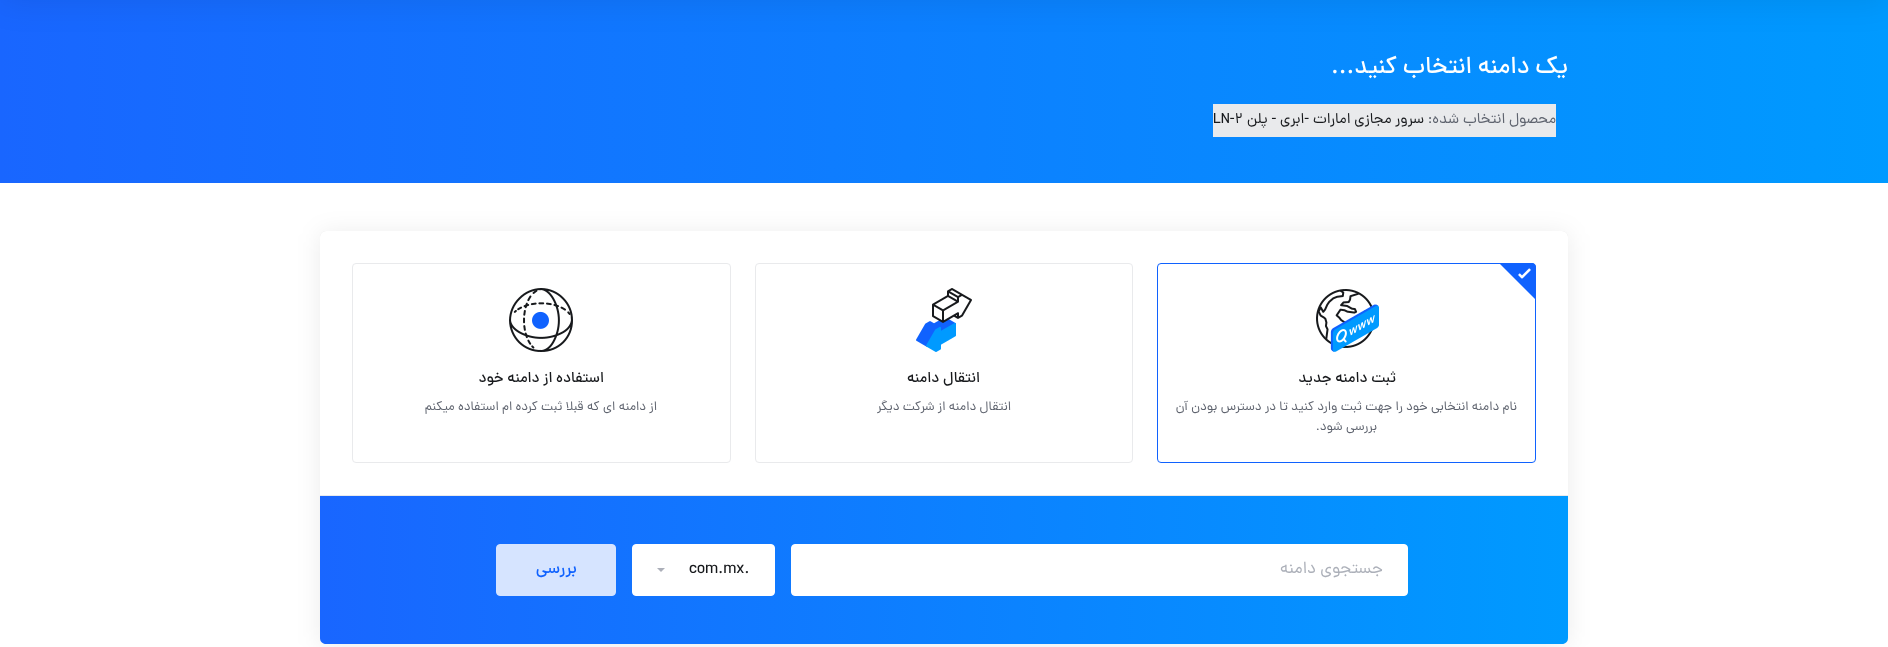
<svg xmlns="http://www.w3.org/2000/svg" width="1888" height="647">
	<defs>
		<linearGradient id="g1" gradientUnits="userSpaceOnUse" x1="0" y1="89" x2="1888" y2="89"><stop offset="0" stop-color="#1966FF" /><stop offset="1" stop-color="#009AFF" /></linearGradient>
		<linearGradient id="g2" gradientUnits="userSpaceOnUse" x1="320" y1="570" x2="1568" y2="570"><stop offset="0" stop-color="#1966FF" /><stop offset="1" stop-color="#009AFF" /></linearGradient>
	</defs>
	<rect width="100%" height="100%" fill="#FFFFFF" />
	<rect x="0" y="0" width="1888" height="183" fill="url(#g1)" />
	<rect x="0" y="-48" width="1888" height="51" fill="#000000" fill-opacity="0.08" filter="blur(16px)" />
	<text x="1568" y="73" font-family="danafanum" font-size="24" font-weight="500" direction="rtl" fill="#FFFFFF">یک دامنه انتخاب کنید...</text>
	<rect x="1424" y="104" width="132" height="33" fill="#E9EAEC" />
	<text x="1556" y="123" font-family="danafanum" font-size="15" direction="rtl" fill="#5E636E">محصول انتخاب شده:</text>
	<rect x="1213" y="104" width="211" height="33" fill="#E9EAEC" />
	<g font-family="danafanum" font-size="15" direction="rtl" fill="#17191C">
		<text x="1424" y="123">سرور مجازی امارات</text>
		<text x="1309" y="123">-ابری - پلن</text>
	</g>
	<text x="1213" y="123" font-family="danafanum" font-size="15" fill="#17191C">LN-2</text>
	<rect x="320" y="233" width="1248" height="413" rx="6" fill="#000000" fill-opacity="0.08" filter="blur(12px)" />
	<rect x="320" y="231" width="1248" height="413" rx="6" fill="#000000" fill-opacity="0.1" filter="blur(0.5px)" />
	<rect x="320" y="231" width="1248" height="413" rx="6" fill="#FFFFFF" />
	<rect x="1157.5" y="263.5" width="378" height="199" rx="3.5" fill="none" stroke="#1062FE" />
	<path d="M1536 300V267C1536 265 1534 263 1532 263H1499Z" fill="#1062FE" />
	<image x="1518" y="268" width="13" height="11" href="assets/img1.png" />
	<image x="1316" y="289" width="63" height="63" href="assets/img2.png" />
	<text x="1396" y="382" font-family="danafanum" font-size="15" font-weight="500" direction="rtl" fill="#17191C">ثبت دامنه جدید</text>
	<g font-family="danafanum" font-size="13" direction="rtl" fill="#5E636E">
		<text x="1517" y="410">نام دامنه انتخابی خود را جهت ثبت وارد کنید تا در دسترس بودن آن</text>
		<text x="1377" y="430">بررسی شود.</text>
	</g>
	<rect x="755.5" y="263.5" width="377" height="199" rx="3.5" fill="none" stroke="#E9EAEC" />
	<image x="916" y="288" width="56" height="64" href="assets/img3.png" />
	<text x="980" y="382" font-family="danafanum" font-size="15" font-weight="500" direction="rtl" fill="#17191C">انتقال دامنه</text>
	<text x="1011" y="410" font-family="danafanum" font-size="13" direction="rtl" fill="#5E636E">انتقال دامنه از شرکت دیگر</text>
	<rect x="352.5" y="263.5" width="378" height="199" rx="3.5" fill="none" stroke="#E9EAEC" />
	<image x="509" y="288" width="64" height="64" href="assets/img4.png" />
	<text x="604" y="382" font-family="danafanum" font-size="15" font-weight="500" direction="rtl" fill="#17191C">استفاده از دامنه خود</text>
	<text x="657" y="410" font-family="danafanum" font-size="13" direction="rtl" fill="#5E636E">از دامنه ای که قبلا ثبت کرده ام استفاده میکنم</text>
	<path d="M320 495H1568V638C1568 641.5 1565.5 644 1562 644H326C322.5 644 320 641.5 320 638Z" fill="url(#g2)" />
	<rect x="320" y="495" width="1248" height="1" fill="#E9EAEC" />
	<rect x="791.5" y="544.5" width="616" height="51" rx="3.5" fill="#FFFFFF" stroke="#FFFFFF" />
	<text x="1383" y="573" font-family="danafanum" font-size="17" direction="rtl" fill="#ACB0B9">جستجوی دامنه</text>
	<rect x="632.5" y="544.5" width="142" height="51" rx="3.5" fill="#FFFFFF" stroke="#FFFFFF" />
	<text x="689" y="573" font-family="danafanum" font-size="17" fill="#17191C">com.mx.</text>
	<path d="M657 568H665L661 572Z" fill="#ACAFB9" />
	<rect x="496.5" y="544.5" width="119" height="51" rx="3.5" fill="#D6E4FF" stroke="#D6E4FF" />
	<text x="577" y="573" font-family="danafanum" font-size="17" font-weight="500" direction="rtl" fill="#1062FE">بررسی</text>
</svg>
